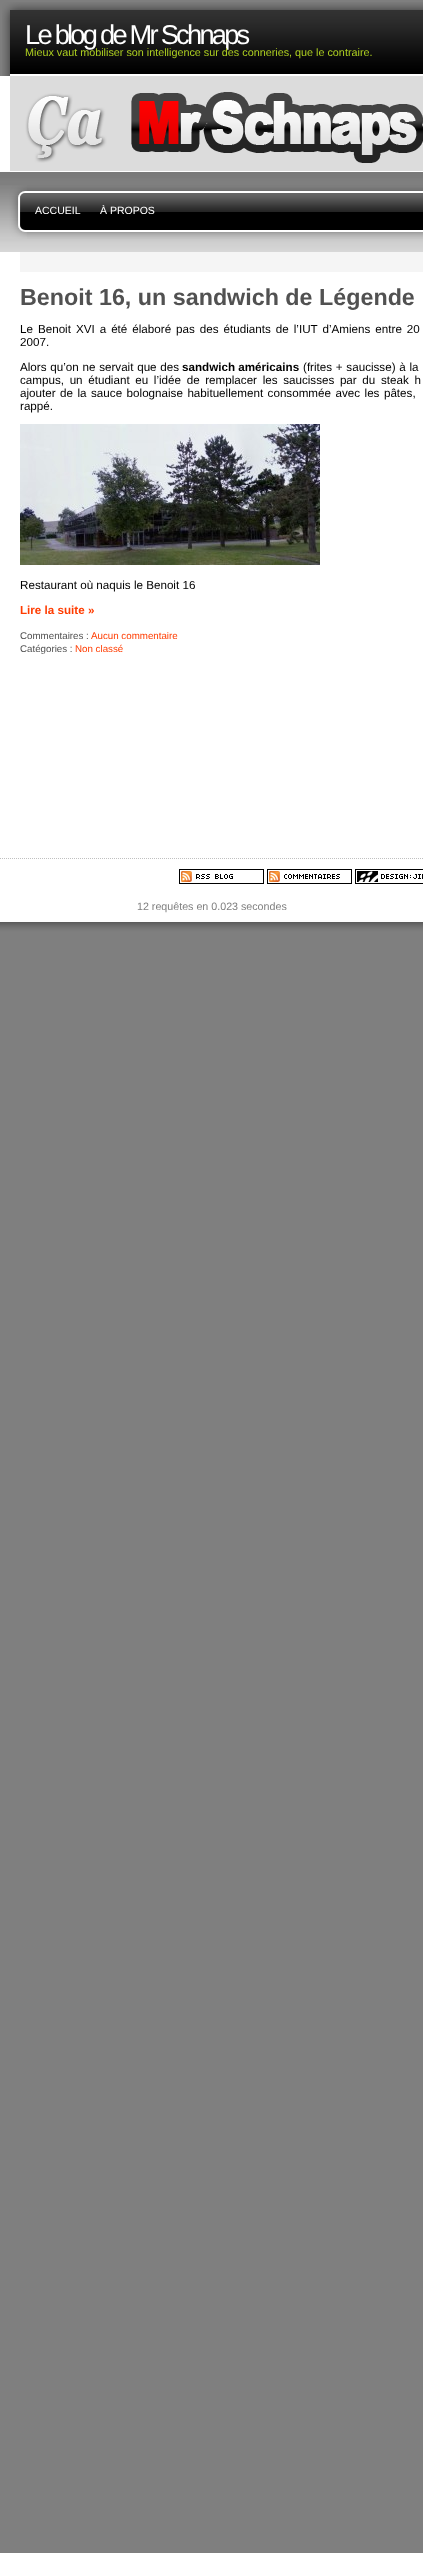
<svg xmlns="http://www.w3.org/2000/svg" width="423" height="2553">
	<rect width="100%" height="100%" fill="#7F7F7F" />
	<rect x="0" y="76" width="423" height="846" fill="#FFFFFF" />
	<image x="2" y="2" width="421" height="74" href="assets/img1.png" />
	<text x="25" y="44" font-family="Liberation Sans" font-size="27.25" letter-spacing="-2.75" fill="#FFFFFF">Le blog de Mr Schnaps</text>
	<text x="25" y="56" font-family="Liberation Sans" font-size="10.8" fill="#ADCF20">Mieux vaut mobiliser son intelligence sur des conneries, que le contraire.</text>
	<image x="10" y="76" width="413" height="95" href="assets/img2.png" />
	<image x="0" y="172" width="423" height="80" href="assets/img3.png" />
	<image x="0" y="185" width="27" height="54" href="assets/img4.png" />
	<g font-family="Liberation Sans" font-size="10.5" fill="#FFFFFF">
		<text x="35" y="214">ACCUEIL</text>
		<text x="100" y="214">À PROPOS</text>
	</g>
	<rect x="20" y="252" width="403" height="20" fill="#F5F5F5" />
	<text x="20" y="305" font-family="Liberation Sans" font-size="23.3" font-weight="700" fill="#515151">Benoit 16, un sandwich de Légende</text>
	<g font-family="Liberation Sans" font-size="11.65" fill="#000000">
		<text x="20" y="333" word-spacing="1.75">Le Benoit XVI a été élaboré pas des étudiants de l’IUT d’Amiens entre 20</text>
		<text x="20" y="346">2007.</text>
		<text x="20" y="371" word-spacing="0.5">Alors qu’on ne servait que des</text>
	</g>
	<text x="182" y="371" font-family="Liberation Sans" font-size="11.65" font-weight="700" fill="#000000">sandwich américains</text>
	<g font-family="Liberation Sans" font-size="11.65" fill="#000000">
		<text x="303" y="371" word-spacing="0.5">(frites + saucisse) à la</text>
		<text x="20" y="384" word-spacing="2.4">campus, un étudiant eu l’idée de remplacer les saucisses par du steak h</text>
		<text x="20" y="397" word-spacing="1.25">ajouter de la sauce bolognaise habituellement consommée avec les pâtes,</text>
		<text x="20" y="410">rappé.</text>
	</g>
	<image x="20" y="424" width="300" height="141" href="assets/img5.png" />
	<text x="20" y="589" font-family="Liberation Sans" font-size="11.65" fill="#000000">Restaurant où naquis le Benoit 16</text>
	<text x="20" y="614" font-family="Liberation Sans" font-size="11.65" font-weight="700" fill="#FF3C00">Lire la suite »</text>
	<text x="20" y="639" font-family="Liberation Sans" font-size="9.75" fill="#515151">Commentaires :</text>
	<text x="91" y="639" font-family="Liberation Sans" font-size="9.75" fill="#FF3C00">Aucun commentaire</text>
	<text x="20" y="652" font-family="Liberation Sans" font-size="9.75" fill="#515151">Catégories :</text>
	<text x="75" y="652" font-family="Liberation Sans" font-size="9.75" fill="#FF3C00">Non classé</text>
	<image x="0" y="922" width="423" height="10" href="assets/img6.png" />
	<path d="M0 858.5H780" fill="none" stroke="#C0C0C0" stroke-dasharray="1 1" />
	<image x="179" y="869" width="85" height="15" href="assets/img7.png" />
	<image x="267" y="869" width="85" height="15" href="assets/img8.png" />
	<image x="355" y="869" width="68" height="15" href="assets/img9.png" />
	<text x="137" y="910" font-family="Liberation Sans" font-size="10.7" fill="#808080">12 requêtes en 0.023 secondes</text>
</svg>
